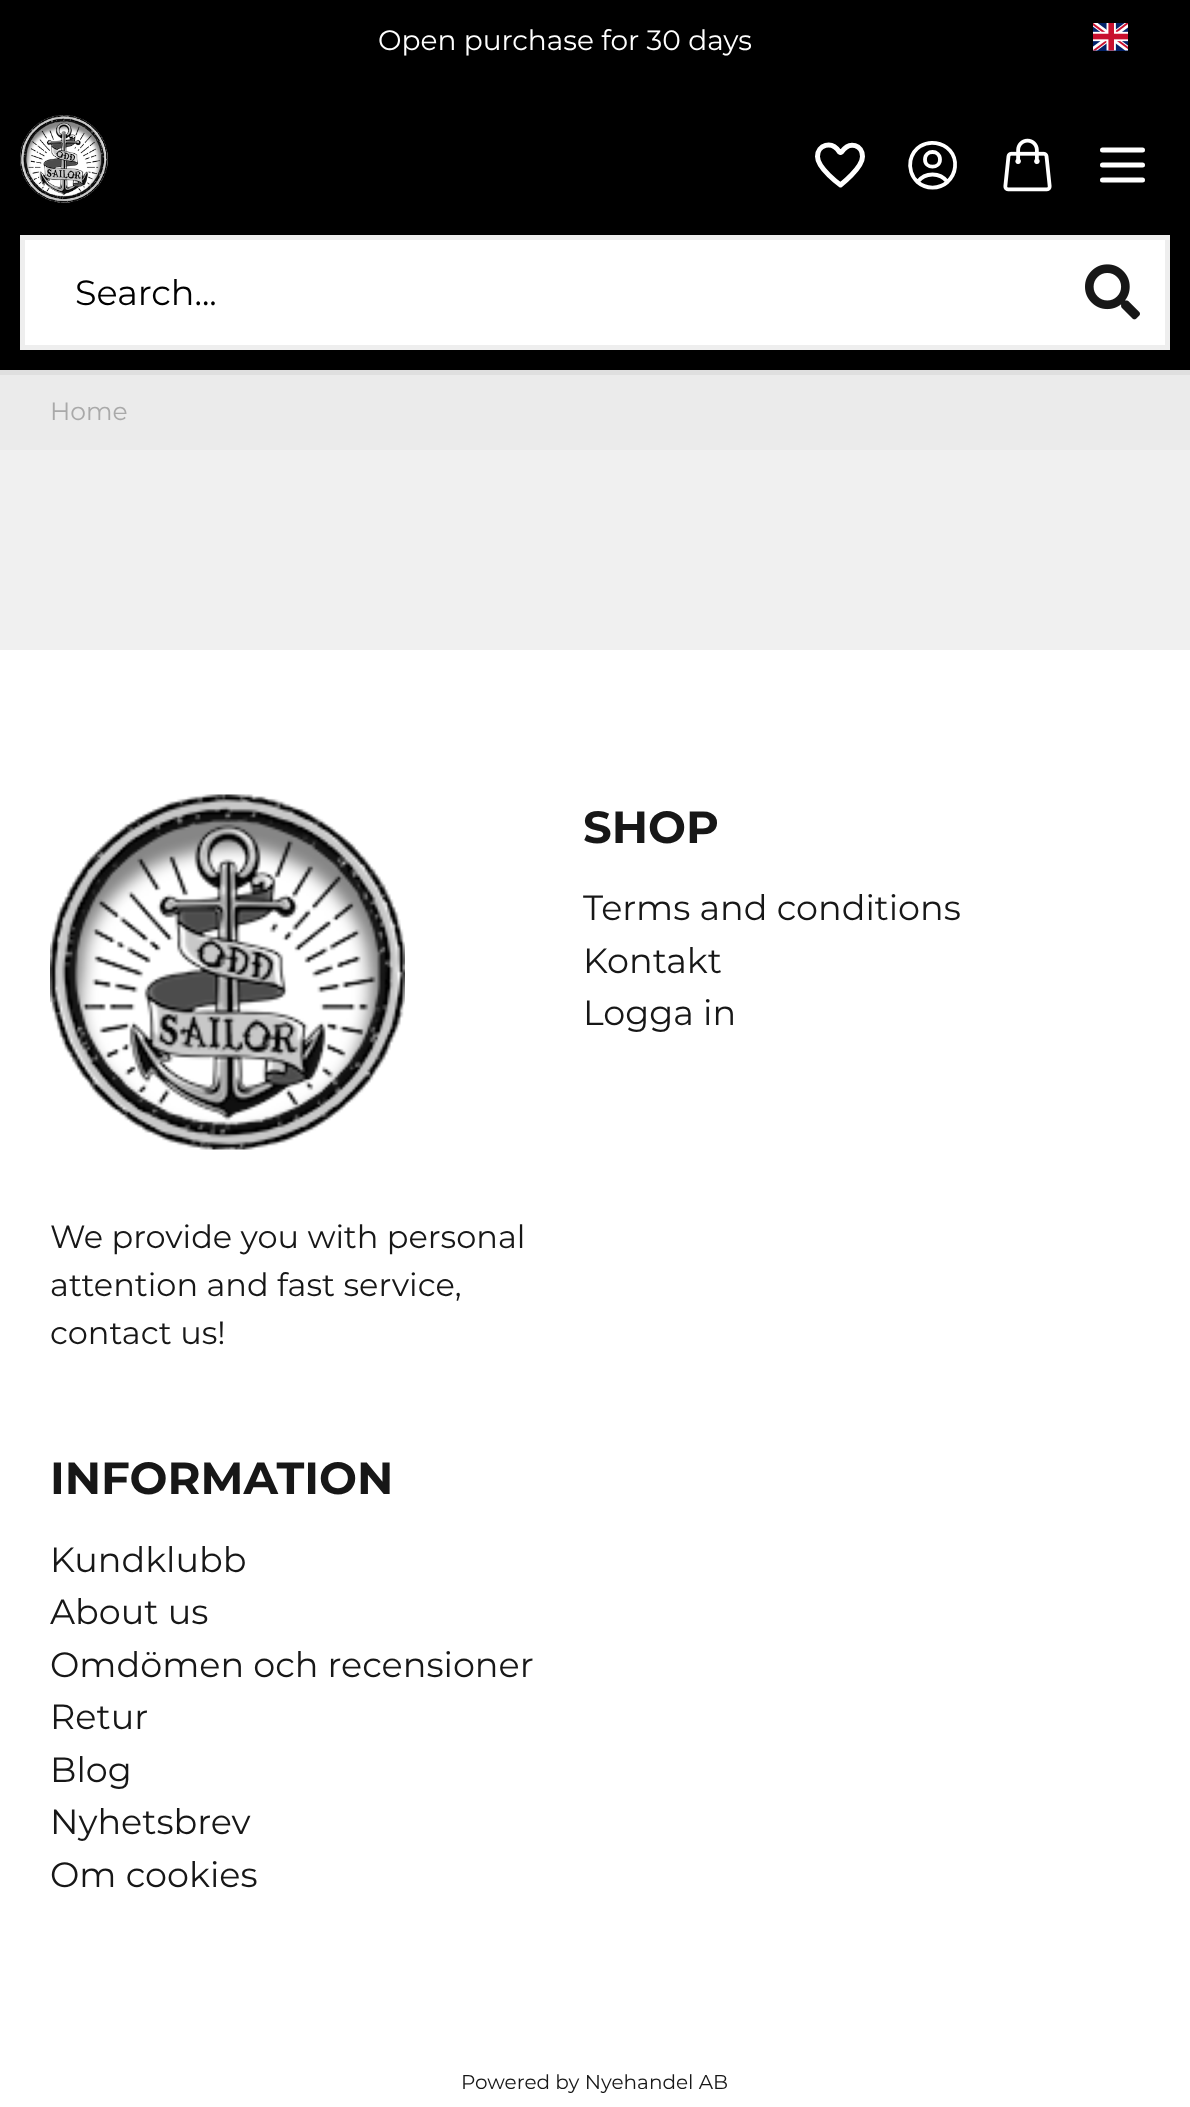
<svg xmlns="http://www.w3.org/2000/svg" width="1190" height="2107">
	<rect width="100%" height="100%" fill="#F0F0F0" />
	<rect x="0" y="0" width="1190" height="370" fill="#000000" />
	<rect x="0" y="370" width="1190" height="5" fill="#DFDFDF" />
	<text x="378" y="50" font-family="Montserrat" font-size="28" fill="#FFFFFF">Open purchase for 30 days</text>
	<image x="1093" y="23" width="35" height="28" href="assets/img1.png" />
	<image x="20" y="115" width="88" height="88" href="assets/img2.png" />
	<path d="M839.5 152C831.5 140 817.5 145 817.5 156.5C817.5 168.5 840.5 185 840.5 185C840.5 185 862.5 168 862.5 156.5C862.5 145.5 850 140 841.5 152L840.5 152.5Z" fill="none" stroke="#FFFFFF" stroke-width="5" stroke-linecap="round" stroke-linejoin="round" />
	<path d="M947.5 182C940 172 925 172 917.5 182M947.5 182C951.5 178 954.5 172.5 955 167C957.5 139.5 916.5 133 910.5 160.5C909 168 911.5 176.5 917.5 182M947.5 182C939 189.5 926 189.5 917.5 182M940 159.5C940 169 925 169 925 159.5C925 149.5 940 149.5 940 159.5Z" fill="none" stroke="#FFFFFF" stroke-width="3.8" stroke-linecap="round" stroke-linejoin="round" />
	<image x="1003" y="138" width="49" height="54" href="assets/img3.png" />
	<path d="M1102.5 150H1142.5M1102.5 165H1142.5M1102.5 180H1142.5" fill="none" stroke="#FFFFFF" stroke-width="5" stroke-linecap="round" stroke-linejoin="round" />
	<rect x="22.5" y="237.5" width="1145" height="110" fill="#FFFFFF" stroke="#EEEEEE" stroke-width="5" />
	<text x="75" y="305" font-family="Montserrat" font-size="35" fill="#000000">Search...</text>
	<image x="1085" y="264" width="55" height="56" href="assets/img4.png" />
	<rect x="0" y="375" width="1190" height="75" fill="#EBEBEB" />
	<text x="50" y="420" font-family="Montserrat" font-size="25" fill="#A9A9A9">Home</text>
	<rect x="0" y="650" width="1190" height="1457" fill="#FFFFFF" />
	<text x="583" y="843" font-family="Montserrat" font-size="45" font-weight="700" fill="#171717">SHOP</text>
	<g font-family="Montserrat" font-size="35" fill="#171717">
		<text x="583" y="920">Terms and conditions</text>
		<text x="583" y="973">Kontakt</text>
		<text x="583" y="1025">Logga in</text>
	</g>
	<image x="50" y="794" width="355" height="356" href="assets/img5.png" />
	<g font-family="Montserrat" font-size="32" fill="#171717">
		<text x="50" y="1248">We provide you with personal</text>
		<text x="50" y="1296">attention and fast service,</text>
		<text x="50" y="1344">contact us!</text>
	</g>
	<text x="50" y="1494" font-family="Montserrat" font-size="45" font-weight="700" fill="#171717">INFORMATION</text>
	<g font-family="Montserrat" font-size="35" fill="#171717">
		<text x="50" y="1572">Kundklubb</text>
		<text x="50" y="1624">About us</text>
		<text x="50" y="1677">Omdömen och recensioner</text>
		<text x="50" y="1729">Retur</text>
		<text x="50" y="1782">Blog</text>
		<text x="50" y="1834">Nyhetsbrev</text>
		<text x="50" y="1887">Om cookies</text>
	</g>
	<text x="461" y="2089" font-family="Montserrat" font-size="20" fill="#171717">Powered by Nyehandel AB</text>
</svg>
